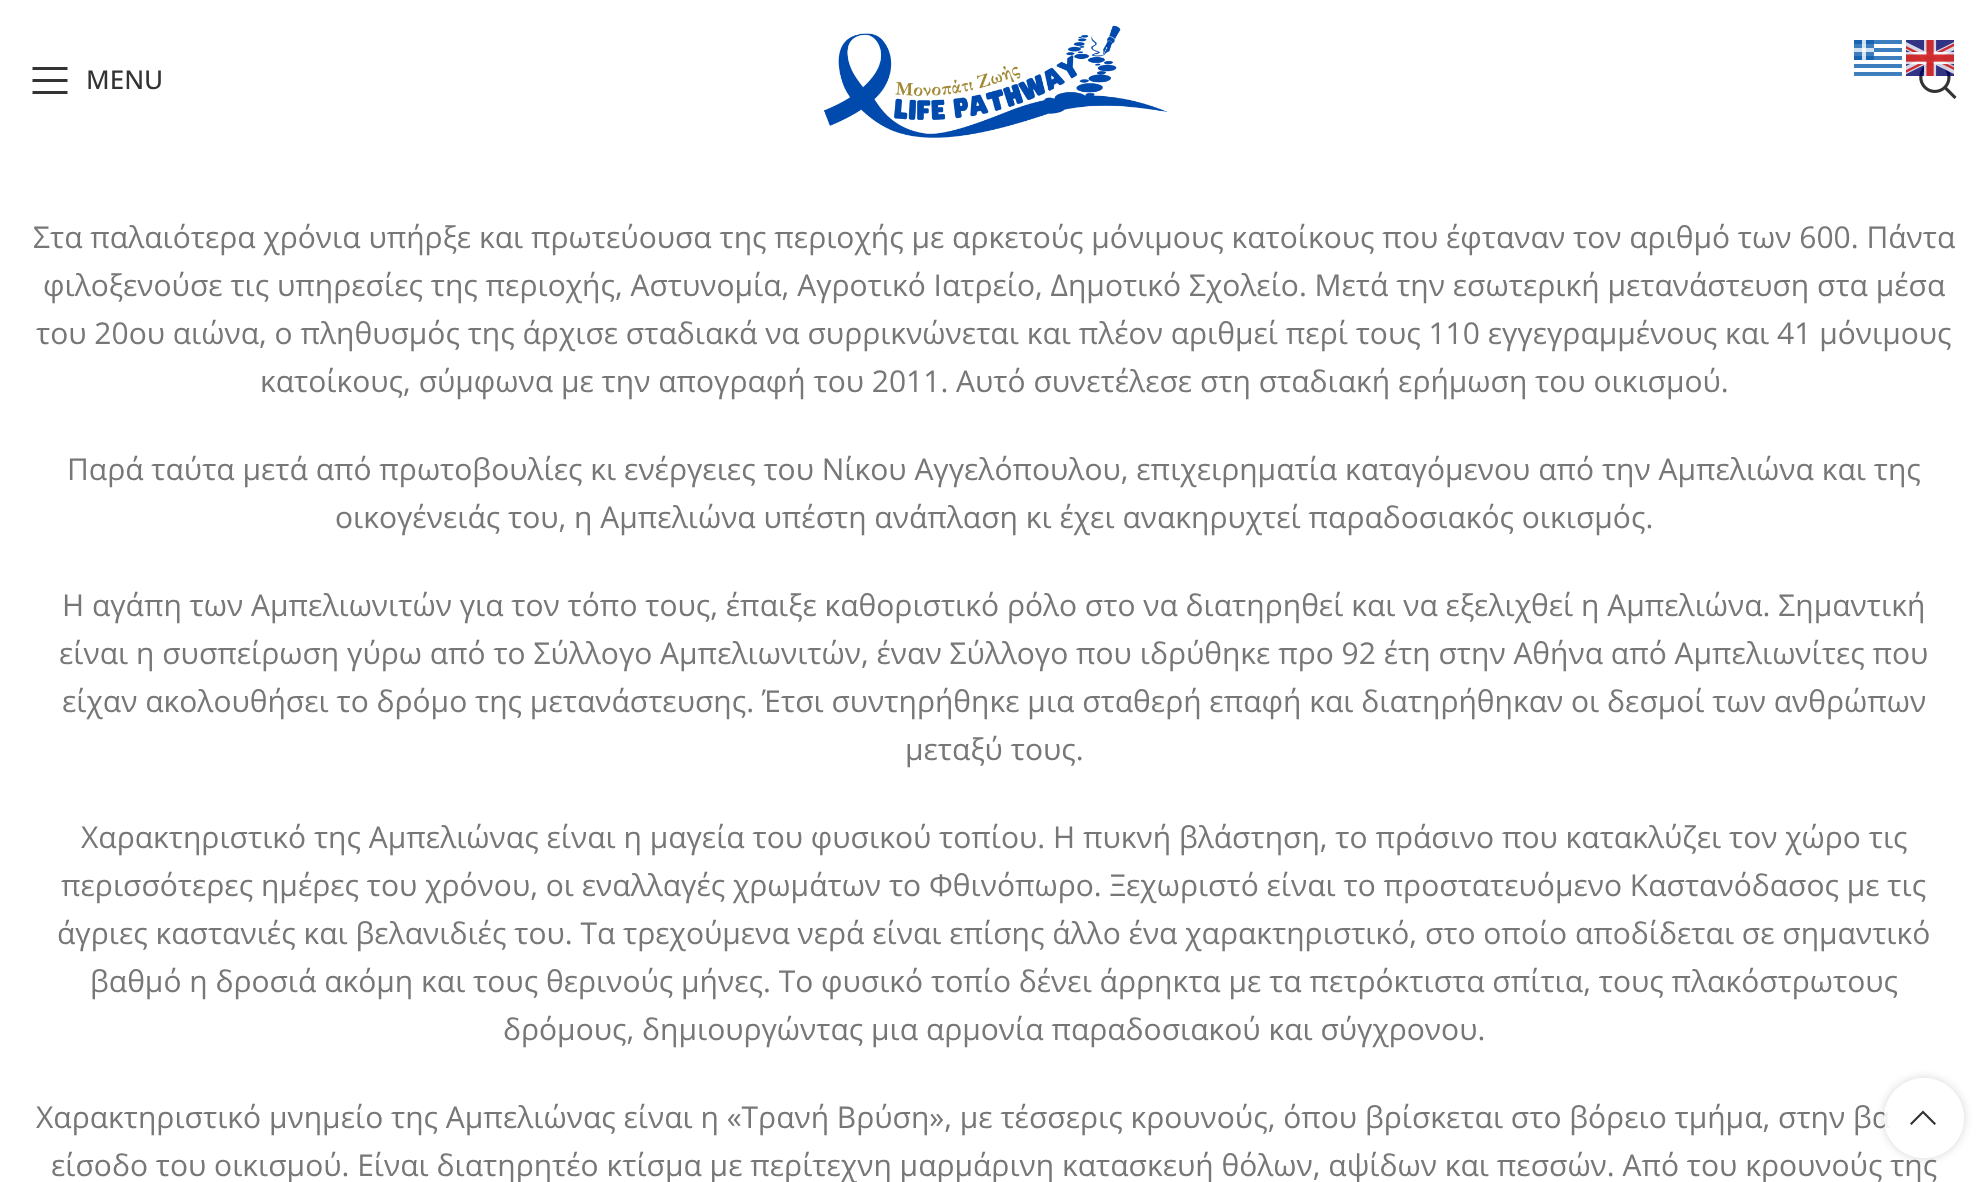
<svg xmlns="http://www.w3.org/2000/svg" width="1988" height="1182">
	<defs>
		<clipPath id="clip1"><path d="M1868 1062H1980V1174H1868ZM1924 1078C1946 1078 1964 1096 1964 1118C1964 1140 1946 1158 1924 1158C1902 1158 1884 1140 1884 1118C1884 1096 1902 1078 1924 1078Z" clip-rule="evenodd" /></clipPath>
	</defs>
	<rect width="100%" height="100%" fill="#FFFFFF" />
	<image x="1854" y="40" width="48" height="36" href="assets/img1.png" />
	<image x="1919" y="62" width="38" height="37" href="assets/img4.png" />
	<image x="1906" y="40" width="48" height="36" href="assets/img2.png" />
	<path d="M32.5 70H67.5V67H32.5ZM32.5 82H67.5V79H32.5ZM32.5 94H67.5V91H32.5Z" fill="#333333" />
	<text x="86" y="89" font-family="Open Sans" font-size="26" font-weight="500" fill="#333333">MENU</text>
	<image x="823" y="25" width="345" height="113" href="assets/img3.png" />
	<g font-family="Open Sans" font-size="30" fill="#777777">
		<text x="33" y="248">Στα παλαιότερα χρόνια υπήρξε και πρωτεύουσα της περιοχής με αρκετούς μόνιμους κατοίκους που έφταναν τον αριθμό των 600. Πάντα</text>
		<text x="43" y="296">φιλοξενούσε τις υπηρεσίες της περιοχής, Αστυνομία, Αγροτικό Ιατρείο, Δημοτικό Σχολείο. Μετά την εσωτερική μετανάστευση στα μέσα</text>
		<text x="36" y="344">του 20ου αιώνα, ο πληθυσμός της άρχισε σταδιακά να συρρικνώνεται και πλέον αριθμεί περί τους 110 εγγεγραμμένους και 41 μόνιμους</text>
		<text x="260" y="392">κατοίκους, σύμφωνα με την απογραφή του 2011. Αυτό συνετέλεσε στη σταδιακή ερήμωση του οικισμού.</text>
		<text x="67" y="480">Παρά ταύτα μετά από πρωτοβουλίες κι ενέργειες του Νίκου Αγγελόπουλου, επιχειρηματία καταγόμενου από την Αμπελιώνα και της</text>
		<text x="335" y="528">οικογένειάς του, η Αμπελιώνα υπέστη ανάπλαση κι έχει ανακηρυχτεί παραδοσιακός οικισμός.</text>
		<text x="62" y="616">H αγάπη των Αμπελιωνιτών για τον τόπο τους, έπαιξε καθοριστικό ρόλο στο να διατηρηθεί και να εξελιχθεί η Αμπελιώνα. Σημαντική</text>
		<text x="59" y="664">είναι η συσπείρωση γύρω από το Σύλλογο Αμπελιωνιτών, έναν Σύλλογο που ιδρύθηκε προ 92 έτη στην Αθήνα από Αμπελιωνίτες που</text>
		<text x="62" y="712">είχαν ακολουθήσει το δρόμο της μετανάστευσης. Έτσι συντηρήθηκε μια σταθερή επαφή και διατηρήθηκαν οι δεσμοί των ανθρώπων</text>
		<text x="905" y="760">μεταξύ τους.</text>
		<text x="81" y="848">Χαρακτηριστικό της Αμπελιώνας είναι η μαγεία του φυσικού τοπίου. Η πυκνή βλάστηση, το πράσινο που κατακλύζει τον χώρο τις</text>
		<text x="61" y="896">περισσότερες ημέρες του χρόνου, οι εναλλαγές χρωμάτων το Φθινόπωρο. Ξεχωριστό είναι το προστατευόμενο Καστανόδασος με τις</text>
		<text x="57" y="944">άγριες καστανιές και βελανιδιές του. Τα τρεχούμενα νερά είναι επίσης άλλο ένα χαρακτηριστικό, στο οποίο αποδίδεται σε σημαντικό</text>
		<text x="90" y="992">βαθμό η δροσιά ακόμη και τους θερινούς μήνες. Το φυσικό τοπίο δένει άρρηκτα με τα πετρόκτιστα σπίτια, τους πλακόστρωτους</text>
		<text x="503" y="1040">δρόμους, δημιουργώντας μια αρμονία παραδοσιακού και σύγχρονου.</text>
		<text x="36" y="1128">Χαρακτηριστικό μνημείο της Αμπελιώνας είναι η «Τρανή Βρύση», με τέσσερις κρουνούς, όπου βρίσκεται στο βόρειο τμήμα, στην βα</text>
		<text x="51" y="1176">είσοδο του οικισμού. Είναι διατηρητέο κτίσμα με περίτεχνη μαρμάρινη κατασκευή θόλων, αψίδων και πεσσών. Από του κρουνούς της</text>
	</g>
	<g clip-path="url(#clip1)">
		<rect x="1884" y="1078" width="80" height="80" rx="40" fill="#000000" fill-opacity="0.17" filter="blur(5px)" />
	</g>
	<circle cx="1924" cy="1118" r="40" fill="#FFFFFF" fill-opacity="0.9" />
	<path d="M1934.5 1125L1936 1123.5L1923 1110.5L1910 1123.5L1911.5 1125L1923 1113.5Z" fill="#333333" />
</svg>
